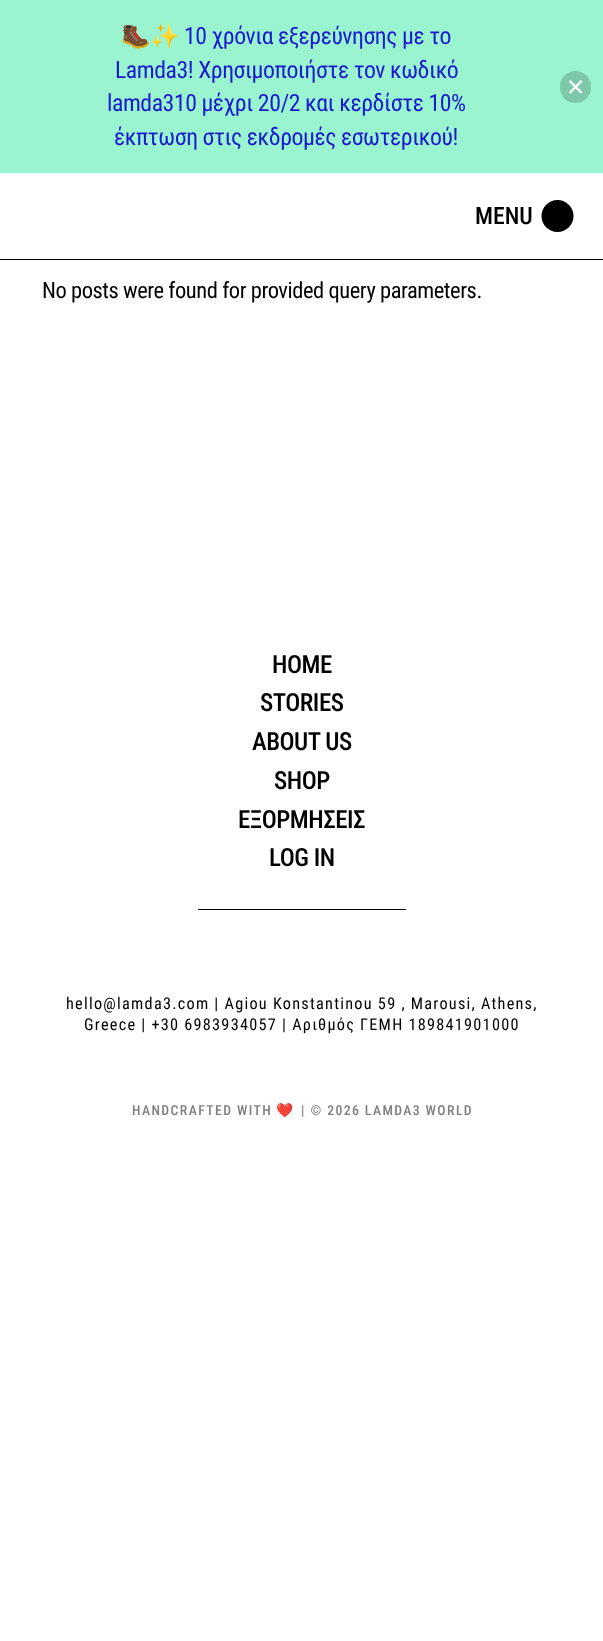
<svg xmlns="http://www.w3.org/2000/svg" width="603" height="1641">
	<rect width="100%" height="100%" fill="#FFFFFF" />
	<rect x="0" y="0" width="603" height="173" fill="#9AF4CF" />
	<text x="121" y="44" font-family="Noto Color Emoji" font-size="23.75" letter-spacing="-0.45" fill="#1919CF">🥾✨</text>
	<g font-family="Roboto Condensed" font-size="23.75" letter-spacing="-0.45" fill="#1919CF">
		<text x="184" y="44">10 χρόνια εξερεύνησης με το</text>
		<text x="115" y="78">Lamda3! Χρησιμοποιήστε τον κωδικό</text>
		<text x="107" y="111">lamda310 μέχρι 20/2 και κερδίστε 10%</text>
		<text x="114" y="145">έκπτωση στις εκδρομές εσωτερικού!</text>
	</g>
	<rect x="560" y="71" width="31" height="32" rx="15.5" fill="#7EC8AA" />
	<image x="568" y="80" width="15" height="14" href="assets/img1.png" />
	<rect x="0" y="259" width="603" height="1" fill="#000000" />
	<text x="475" y="224" font-family="Roboto Condensed" font-size="23.75" font-weight="500" fill="#000000">MENU</text>
	<circle cx="557.5" cy="216" r="16" fill="#000000" />
	<text x="42" y="298" font-family="Roboto Condensed" font-size="22.5" letter-spacing="-0.45" fill="#000000">No posts were found for provided query parameters.</text>
	<g font-family="Roboto Condensed" font-size="25" font-weight="500" letter-spacing="-0.5" fill="#000000">
		<text x="272" y="673">HOME</text>
		<text x="260" y="711">STORIES</text>
		<text x="252" y="750">ABOUT US</text>
		<text x="274" y="789">SHOP</text>
		<text x="238" y="828">ΕΞΟΡΜΗΣΕΙΣ</text>
		<text x="269" y="866">LOG IN</text>
	</g>
	<rect x="198" y="909" width="208" height="1" fill="#000000" />
	<g font-family="Roboto Condensed" font-size="16.25" letter-spacing="1.25" fill="#000000">
		<text x="66" y="1009">hello@lamda3.com | Agiou Konstantinou 59 , Marousi, Athens,</text>
		<text x="84" y="1030">Greece | +30 6983934057 | Αριθμός ΓΕΜΗ 189841901000</text>
	</g>
	<text x="132" y="1115" font-family="Roboto Condensed" font-size="13.75" font-weight="500" letter-spacing="1.4" fill="#808080">HANDCRAFTED WITH</text>
	<text x="276" y="1115" font-family="Noto Color Emoji" font-size="13.75" letter-spacing="1.4" fill="#808080">❤️</text>
	<text x="301" y="1115" font-family="Roboto Condensed" font-size="13.75" font-weight="500" letter-spacing="1.4" fill="#808080">| © 2026 LAMDA3 WORLD</text>
</svg>
